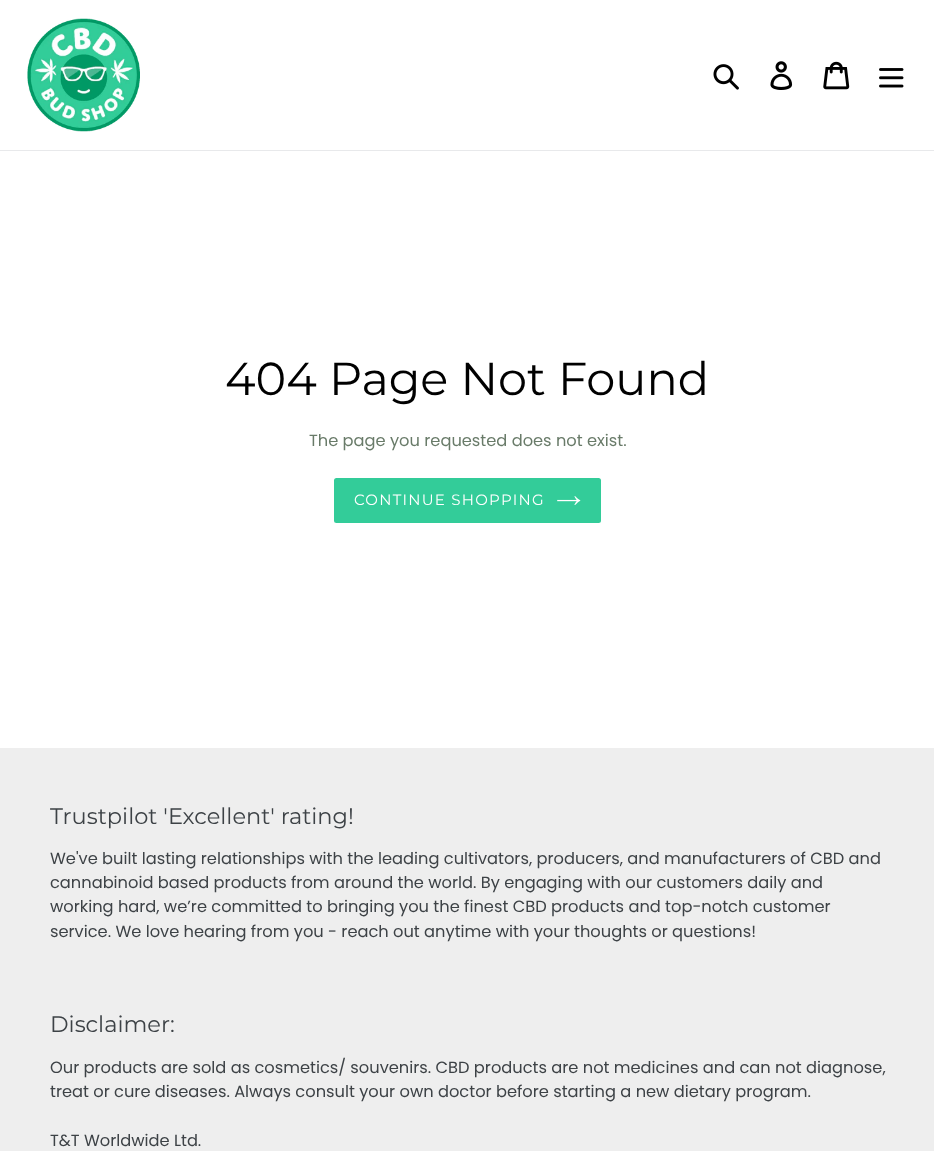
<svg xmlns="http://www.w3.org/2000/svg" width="934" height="1151">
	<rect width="100%" height="100%" fill="#FFFFFF" />
	<rect x="0" y="150" width="934" height="1" fill="#E8E9EB" />
	<image x="27" y="18" width="113" height="114" href="assets/img1.png" />
	<image x="713" y="64" width="26" height="26" href="assets/img2.png" />
	<image x="770" y="61" width="23" height="29" href="assets/img3.png" />
	<image x="823" y="61" width="27" height="29" href="assets/img4.png" />
	<image x="879" y="68" width="25" height="20" href="assets/img5.png" />
	<text x="225" y="395" font-family="Montserrat" font-size="46.25" fill="#000000">404 Page Not Found</text>
	<text x="309" y="446" font-family="Poppins" font-size="16.25" fill="#697B69">The page you requested does not exist.</text>
	<rect x="334" y="478" width="267" height="45" rx="2.5" fill="#33CC99" />
	<text x="354" y="505" font-family="Montserrat" font-size="15" letter-spacing="1.25" fill="#FFFFFF">CONTINUE SHOPPING</text>
	<image x="557" y="496" width="24" height="9" href="assets/img6.png" />
	<rect x="0" y="748" width="934" height="403" fill="#EEEEEE" />
	<text x="50" y="824" font-family="Montserrat" font-size="22.5" fill="#3D4246">Trustpilot 'Excellent' rating!</text>
	<g font-family="Poppins" font-size="16.25" fill="#3D4246">
		<text x="50" y="864">We've built lasting relationships with the leading cultivators, producers, and manufacturers of CBD and</text>
		<text x="50" y="888">cannabinoid based products from around the world. By engaging with our customers daily and</text>
		<text x="50" y="912">working hard, we’re committed to bringing you the finest CBD products and top-notch customer</text>
		<text x="50" y="937">service. We love hearing from you - reach out anytime with your thoughts or questions!</text>
	</g>
	<text x="50" y="1032" font-family="Montserrat" font-size="22.5" fill="#3D4246">Disclaimer:</text>
	<g font-family="Poppins" font-size="16.25" fill="#3D4246">
		<text x="50" y="1073">Our products are sold as cosmetics/ souvenirs. CBD products are not medicines and can not diagnose,</text>
		<text x="50" y="1097">treat or cure diseases. Always consult your own doctor before starting a new dietary program.</text>
		<text x="50" y="1146">T&amp;T Worldwide Ltd.</text>
	</g>
</svg>
